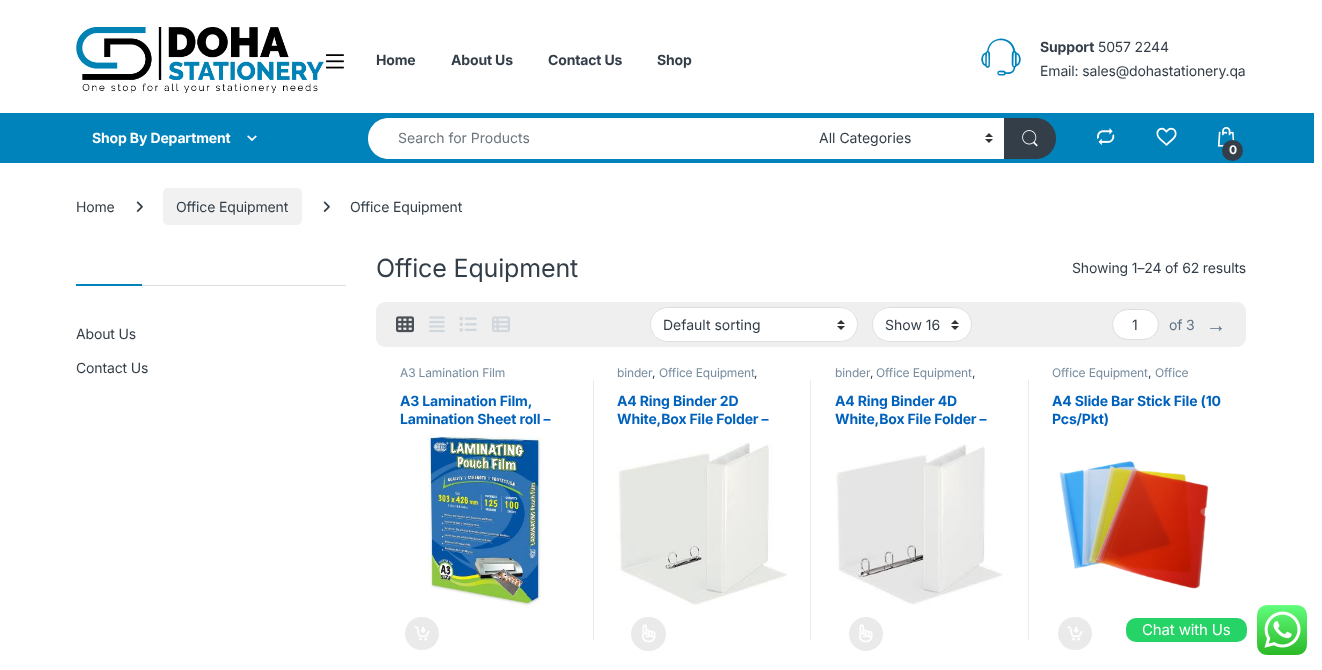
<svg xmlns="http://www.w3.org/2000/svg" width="1322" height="670">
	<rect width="100%" height="100%" fill="#FFFFFF" />
	<image x="76" y="27" width="248" height="66" href="assets/img1.png" />
	<image x="326" y="54" width="18" height="15" href="assets/img2.png" />
	<g font-family="Inter" font-size="14" font-weight="700" letter-spacing="-0.15" fill="#333E48">
		<text x="376" y="65">Home</text>
		<text x="451" y="65">About Us</text>
		<text x="548" y="65">Contact Us</text>
		<text x="657" y="65">Shop</text>
	</g>
	<image x="981" y="38" width="40" height="38" href="assets/img3.png" />
	<text x="1040" y="52" font-family="Inter" font-size="14" font-weight="700" letter-spacing="-0.15" fill="#333E48">Support</text>
	<g font-family="Inter" font-size="14" letter-spacing="-0.15" fill="#333E48">
		<text x="1098" y="52">5057 2244</text>
		<text x="1040" y="76">Email: sales@dohastationery.qa</text>
	</g>
	<rect x="0" y="113" width="1314" height="50" fill="#0082BA" />
	<text x="92" y="143" font-family="Inter" font-size="14" font-weight="700" letter-spacing="-0.15" fill="#FFFFFF">Shop By Department</text>
	<image x="247" y="135" width="10" height="6" href="assets/img4.png" />
	<path d="M388.5 118H808V159H388.5C377 159 368 150 368 138.5C368 127 377 118 388.5 118Z" fill="#FFFFFF" />
	<text x="398" y="143" font-family="Inter" font-size="14" fill="#6C757D">Search for Products</text>
	<rect x="808" y="118" width="196" height="41" fill="#FFFFFF" />
	<image x="985" y="133" width="8" height="10" href="assets/img5.png" />
	<text x="819" y="143" font-family="Inter" font-size="14" fill="#333E48">All Categories</text>
	<path d="M1004 118H1035.5C1047 118 1056 127 1056 138.5C1056 150 1047 159 1035.5 159H1004Z" fill="#333E48" />
	<image x="1022" y="130" width="16" height="17" href="assets/img6.png" />
	<image x="1097" y="128" width="18" height="17" href="assets/img7.png" />
	<image x="1156" y="127" width="21" height="19" href="assets/img8.png" />
	<image x="1217" y="127" width="18" height="20" href="assets/img9.png" />
	<circle cx="1232.5" cy="150.5" r="10.5" fill="#333E48" />
	<text x="1229" y="154" font-family="Inter" font-size="12" font-weight="700" letter-spacing="-0.15" fill="#FFFFFF">0</text>
	<text x="76" y="212" font-family="Inter" font-size="14" letter-spacing="-0.15" fill="#333E48">Home</text>
	<image x="136" y="201" width="7" height="11" href="assets/img10.png" />
	<rect x="163" y="188" width="139" height="37" rx="5" fill="#F1F1F1" />
	<text x="176" y="212" font-family="Inter" font-size="14" letter-spacing="-0.15" fill="#333E48">Office Equipment</text>
	<image x="323" y="201" width="7" height="11" href="assets/img10.png" />
	<text x="350" y="212" font-family="Inter" font-size="14" letter-spacing="-0.15" fill="#333E48">Office Equipment</text>
	<rect x="142" y="285" width="204" height="1" fill="#DDDDDD" />
	<rect x="76" y="284" width="66" height="2" fill="#0082BA" />
	<g font-family="Inter" font-size="14" letter-spacing="-0.15" fill="#333E48">
		<text x="76" y="339">About Us</text>
		<text x="76" y="373">Contact Us</text>
	</g>
	<text x="376" y="277" font-family="Inter" font-size="25" letter-spacing="-0.15" fill="#333E48">Office Equipment</text>
	<text x="1072" y="273" font-family="Inter" font-size="14" letter-spacing="-0.15" fill="#333E48">Showing 1–24 of 62 results</text>
	<rect x="376" y="302" width="870" height="45" rx="9" fill="#EFEFEF" />
	<image x="396" y="316" width="18" height="17" href="assets/img11.png" />
	<image x="429" y="316" width="16" height="17" href="assets/img12.png" />
	<image x="459" y="317" width="18" height="15" href="assets/img13.png" />
	<image x="492" y="316" width="18" height="17" href="assets/img14.png" />
	<rect x="650" y="307" width="208" height="35" rx="17.5" fill="#FFFFFF" />
	<image x="837" y="320" width="8" height="10" href="assets/img5.png" />
	<rect x="650.5" y="307.5" width="207" height="34" rx="17" fill="none" stroke="#DDDDDD" />
	<text x="663" y="330" font-family="Inter" font-size="14" fill="#333E48">Default sorting</text>
	<rect x="872" y="307" width="100" height="35" rx="17.5" fill="#FFFFFF" />
	<image x="951" y="320" width="8" height="10" href="assets/img5.png" />
	<rect x="872.5" y="307.5" width="99" height="34" rx="17" fill="none" stroke="#DDDDDD" />
	<text x="885" y="330" font-family="Inter" font-size="14" fill="#333E48">Show 16</text>
	<rect x="1112.5" y="309.5" width="46" height="30" rx="15" fill="#FFFFFF" stroke="#DDDDDD" />
	<text x="1132" y="330" font-family="Inter" font-size="14" fill="#333E48">1</text>
	<text x="1169" y="330" font-family="Inter" font-size="14" letter-spacing="-0.15" fill="#5D7184">of 3</text>
	<text x="1206" y="332" font-family="Liberation Sans" font-size="20" letter-spacing="-0.15" fill="#5D7184">→</text>
	<text x="400" y="377" font-family="Inter" font-size="12" letter-spacing="-0.15" fill="#768B9E">A3 Lamination Film</text>
	<g font-family="Inter" font-size="14" font-weight="700" letter-spacing="-0.15" fill="#0062BD">
		<text x="400" y="406">A3 Lamination Film,</text>
		<text x="400" y="424">Lamination Sheet roll –</text>
	</g>
	<image x="427" y="436" width="118" height="170" href="assets/img15.png" />
	<rect x="405" y="617" width="34" height="33" rx="16.5" fill="#EAEAEA" />
	<image x="414" y="626" width="16" height="15" href="assets/img16.png" />
	<rect x="593" y="380" width="1" height="260" fill="#EAEAEA" />
	<text x="617" y="377" font-family="Inter" font-size="12" letter-spacing="-0.15" fill="#768B9E">binder</text>
	<text x="652" y="377" font-family="Inter" font-size="12" letter-spacing="-0.15" fill="#333E48">,</text>
	<text x="659" y="377" font-family="Inter" font-size="12" letter-spacing="-0.15" fill="#768B9E">Office Equipment</text>
	<text x="754" y="377" font-family="Inter" font-size="12" letter-spacing="-0.15" fill="#333E48">,</text>
	<g font-family="Inter" font-size="14" font-weight="700" letter-spacing="-0.15" fill="#0062BD">
		<text x="617" y="406">A4 Ring Binder 2D</text>
		<text x="617" y="424">White,Box File Folder –</text>
	</g>
	<image x="617" y="442" width="170" height="163" href="assets/img17.png" />
	<rect x="631" y="617" width="35" height="34" rx="17" fill="#EAEAEA" />
	<image x="642" y="624" width="14" height="19" href="assets/img18.png" />
	<rect x="810" y="380" width="1" height="260" fill="#EAEAEA" />
	<g font-family="Inter" font-size="12" letter-spacing="-0.15" fill="#768B9E">
		<text x="835" y="377">binder</text>
		<text x="876" y="377">Office Equipment</text>
	</g>
	<g font-family="Inter" font-size="12" letter-spacing="-0.15" fill="#333E48">
		<text x="870" y="377">,</text>
		<text x="972" y="377">,</text>
	</g>
	<g font-family="Inter" font-size="14" font-weight="700" letter-spacing="-0.15" fill="#0062BD">
		<text x="835" y="406">A4 Ring Binder 4D</text>
		<text x="835" y="424">White,Box File Folder –</text>
	</g>
	<image x="836" y="444" width="167" height="161" href="assets/img19.png" />
	<circle cx="866" cy="634" r="17" fill="#EAEAEA" />
	<image x="859" y="624" width="14" height="19" href="assets/img18.png" />
	<rect x="1028" y="380" width="1" height="260" fill="#EAEAEA" />
	<text x="1052" y="377" font-family="Inter" font-size="12" letter-spacing="-0.15" fill="#768B9E">Office Equipment</text>
	<text x="1148" y="377" font-family="Inter" font-size="12" letter-spacing="-0.15" fill="#333E48">,</text>
	<text x="1155" y="377" font-family="Inter" font-size="12" letter-spacing="-0.15" fill="#768B9E">Office</text>
	<g font-family="Inter" font-size="14" font-weight="700" letter-spacing="-0.15" fill="#0062BD">
		<text x="1052" y="406">A4 Slide Bar Stick File (10</text>
		<text x="1052" y="424">Pcs/Pkt)</text>
	</g>
	<image x="1059" y="461" width="150" height="128" href="assets/img20.png" />
	<rect x="1058" y="617" width="34" height="33" rx="16.5" fill="#EAEAEA" />
	<image x="1067" y="626" width="16" height="15" href="assets/img16.png" />
	<rect x="1126" y="618" width="121" height="24" rx="10" fill="#25D366" />
	<text x="1142" y="635" font-family="Inter" font-size="15" letter-spacing="-0.15" fill="#FFFFFF">Chat with Us</text>
	<image x="1257" y="605" width="50" height="50" href="assets/img21.png" />
</svg>
